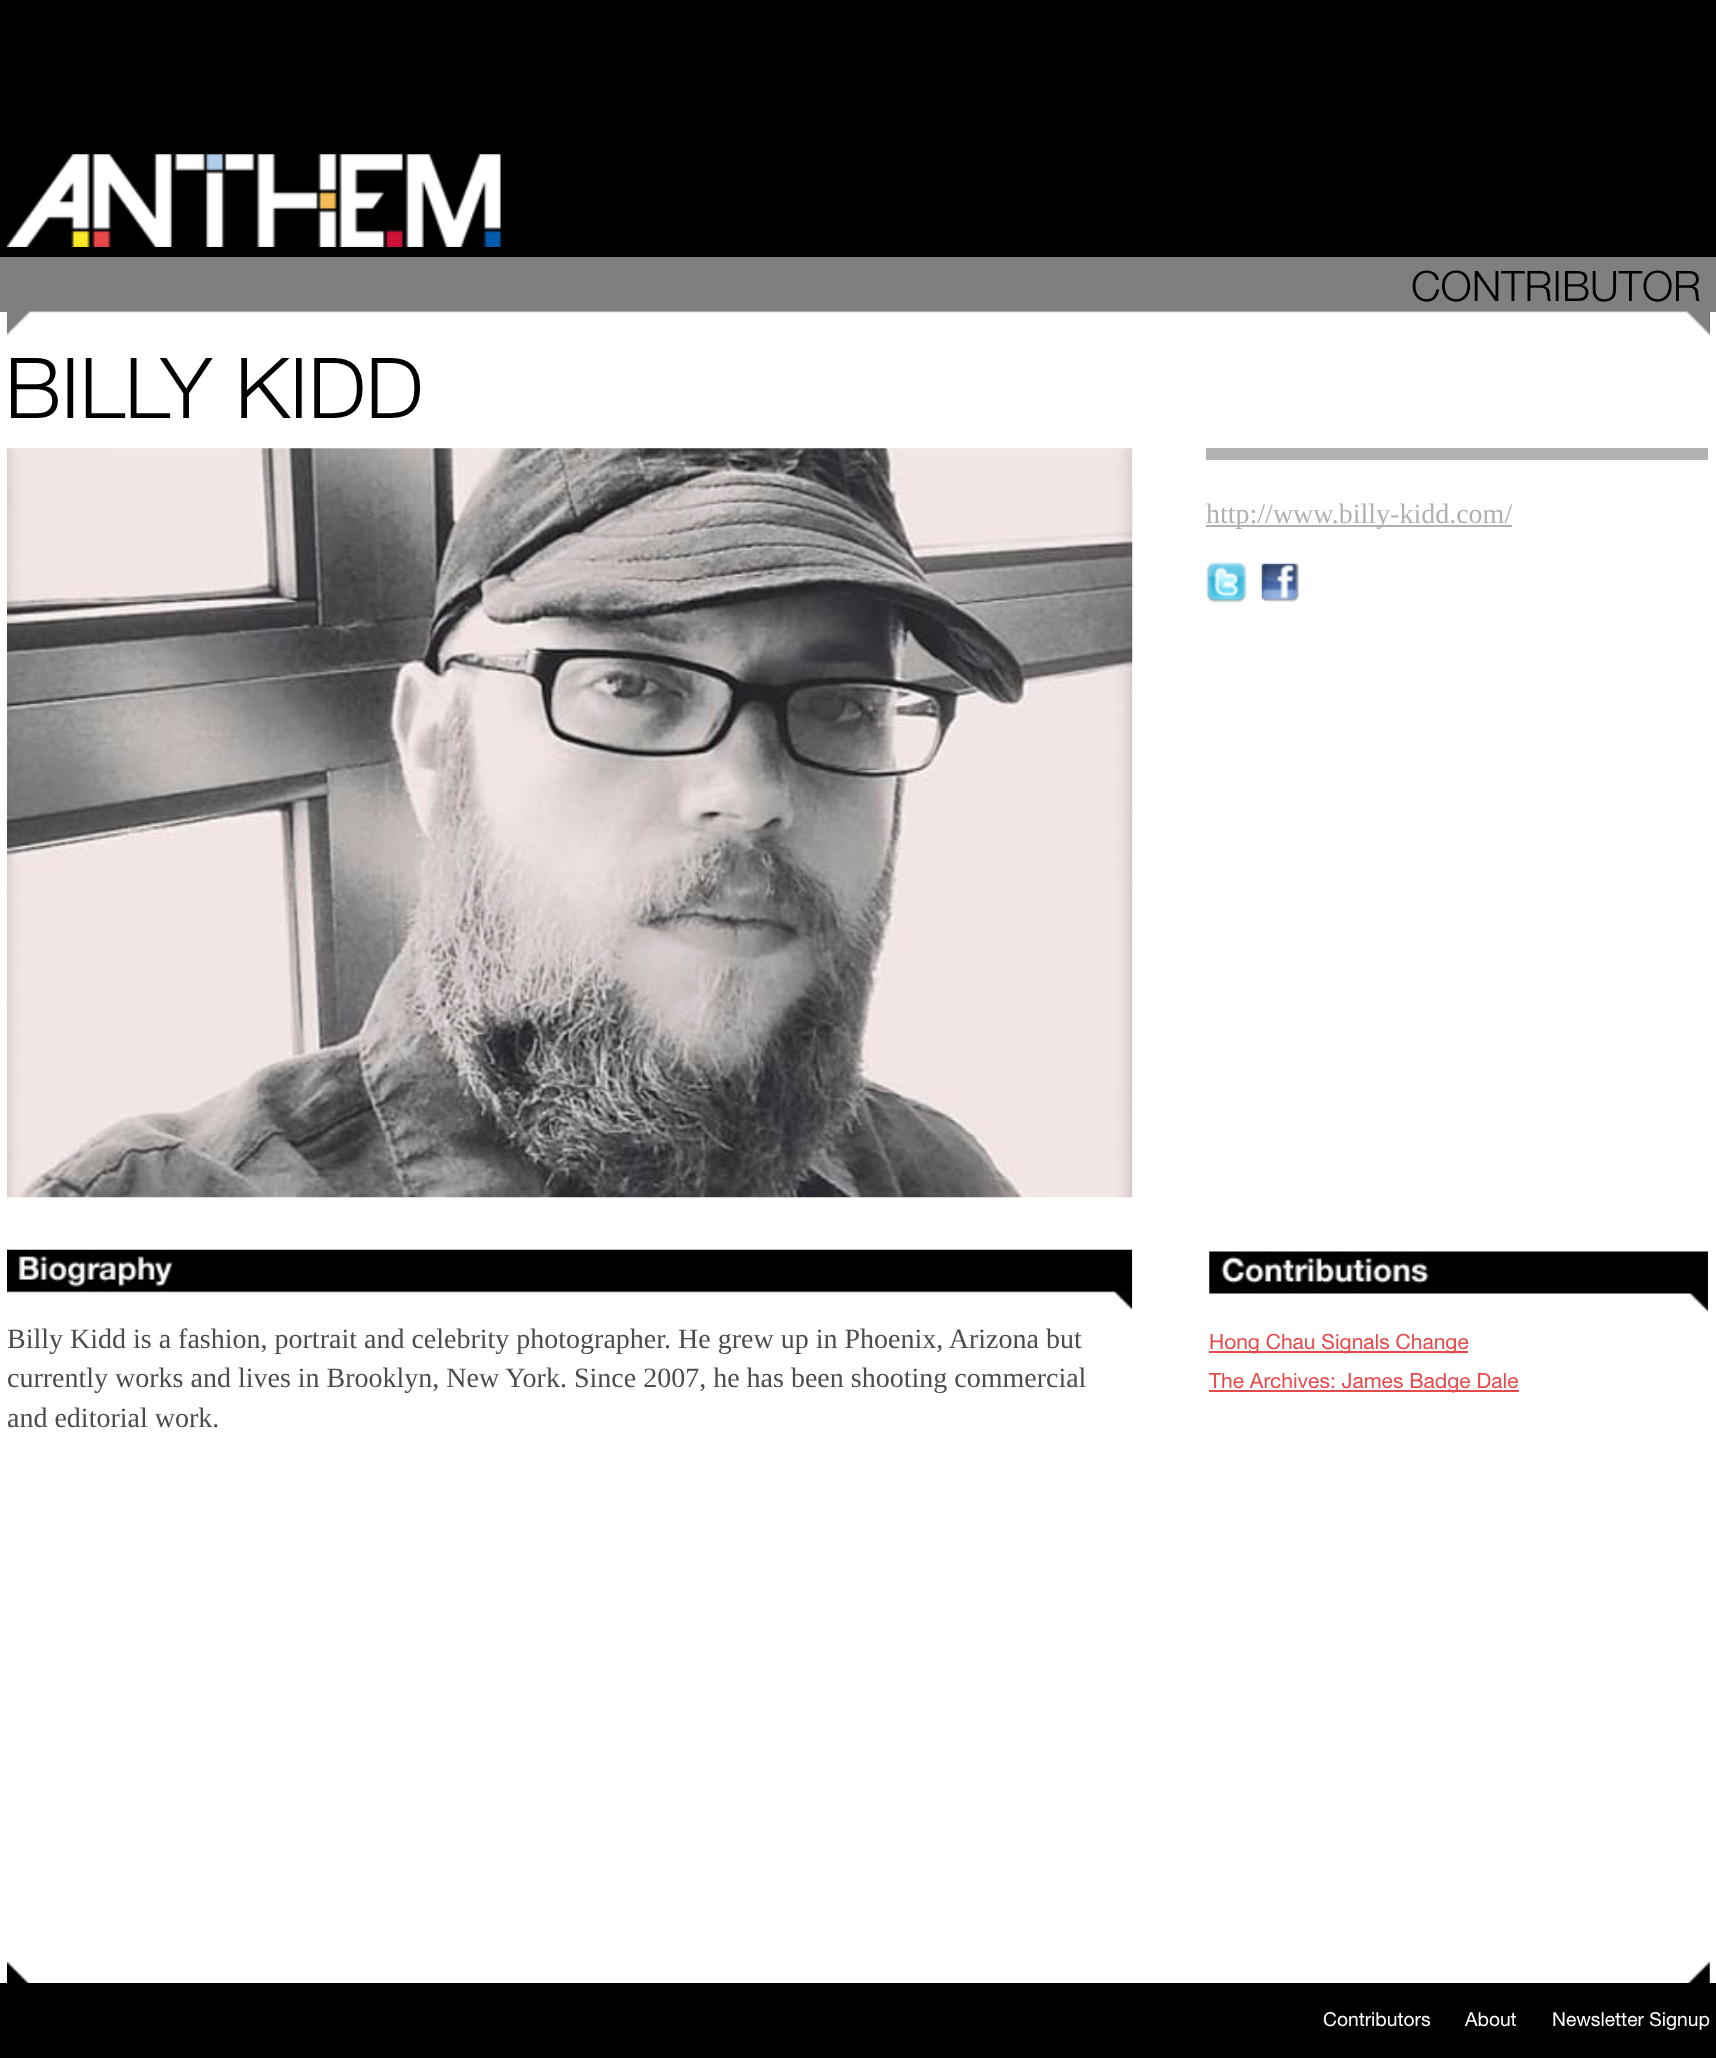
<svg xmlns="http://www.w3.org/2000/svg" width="1716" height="2058">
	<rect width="100%" height="100%" fill="#FFFFFF" />
	<rect x="0" y="0" width="1716" height="257" fill="#000000" />
	<image x="7" y="312" width="1703" height="23" href="assets/img1.png" />
	<image x="7" y="154" width="494" height="93" href="assets/img2.png" />
	<rect x="0" y="257" width="1716" height="55" fill="#7F7F7F" />
	<image x="7" y="311" width="1703" height="24" href="assets/img3.png" />
	<text x="1411" y="301" font-family="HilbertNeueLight" font-size="42" font-weight="300" fill="#000000">CONTRIBUTOR</text>
	<text x="5" y="418" font-family="HilbertNeueLight" font-size="84" font-weight="300" fill="#000000">BILLY KIDD</text>
	<image x="7" y="448" width="1126" height="750" href="assets/img4.png" />
	<rect x="1206" y="448" width="502" height="12" fill="#B2B2B2" />
	<rect x="1206" y="525" width="306" height="2" fill="#B1B1B1" />
	<text x="1206" y="523" font-family="Liberation Serif" font-size="28" fill="#B1B1B1">http://www.billy-kidd.com/</text>
	<image x="1206" y="562" width="41" height="41" href="assets/img5.png" />
	<image x="1261" y="563" width="38" height="39" href="assets/img6.png" />
	<image x="7" y="1249" width="1126" height="61" href="assets/img7.png" />
	<g font-family="Liberation Serif" font-size="28" fill="#4C4C4C">
		<text x="7" y="1348">Billy Kidd is a fashion, portrait and celebrity photographer. He grew up in Phoenix, Arizona but</text>
		<text x="7" y="1387">currently works and lives in Brooklyn, New York. Since 2007, he has been shooting commercial</text>
		<text x="7" y="1427">and editorial work.</text>
	</g>
	<image x="1209" y="1251" width="499" height="60" href="assets/img8.png" />
	<rect x="1209" y="1351" width="259" height="2" fill="#E7494A" />
	<text x="1209" y="1349" font-family="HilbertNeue" font-size="21" font-weight="500" fill="#E7494A">Hong Chau Signals Change</text>
	<rect x="1209" y="1390" width="310" height="2" fill="#E7494A" />
	<text x="1209" y="1388" font-family="HilbertNeue" font-size="21" font-weight="500" fill="#E7494A">The Archives: James Badge Dale</text>
	<image x="7" y="1962" width="1703" height="21" href="assets/img9.png" />
	<rect x="0" y="1983" width="1716" height="75" fill="#000000" />
	<g font-family="HilbertNeue" font-size="19.25" font-weight="500" fill="#FFFFFF">
		<text x="1323" y="2026">Contributors</text>
		<text x="1465" y="2026">About</text>
		<text x="1552" y="2026">Newsletter Signup</text>
	</g>
</svg>
